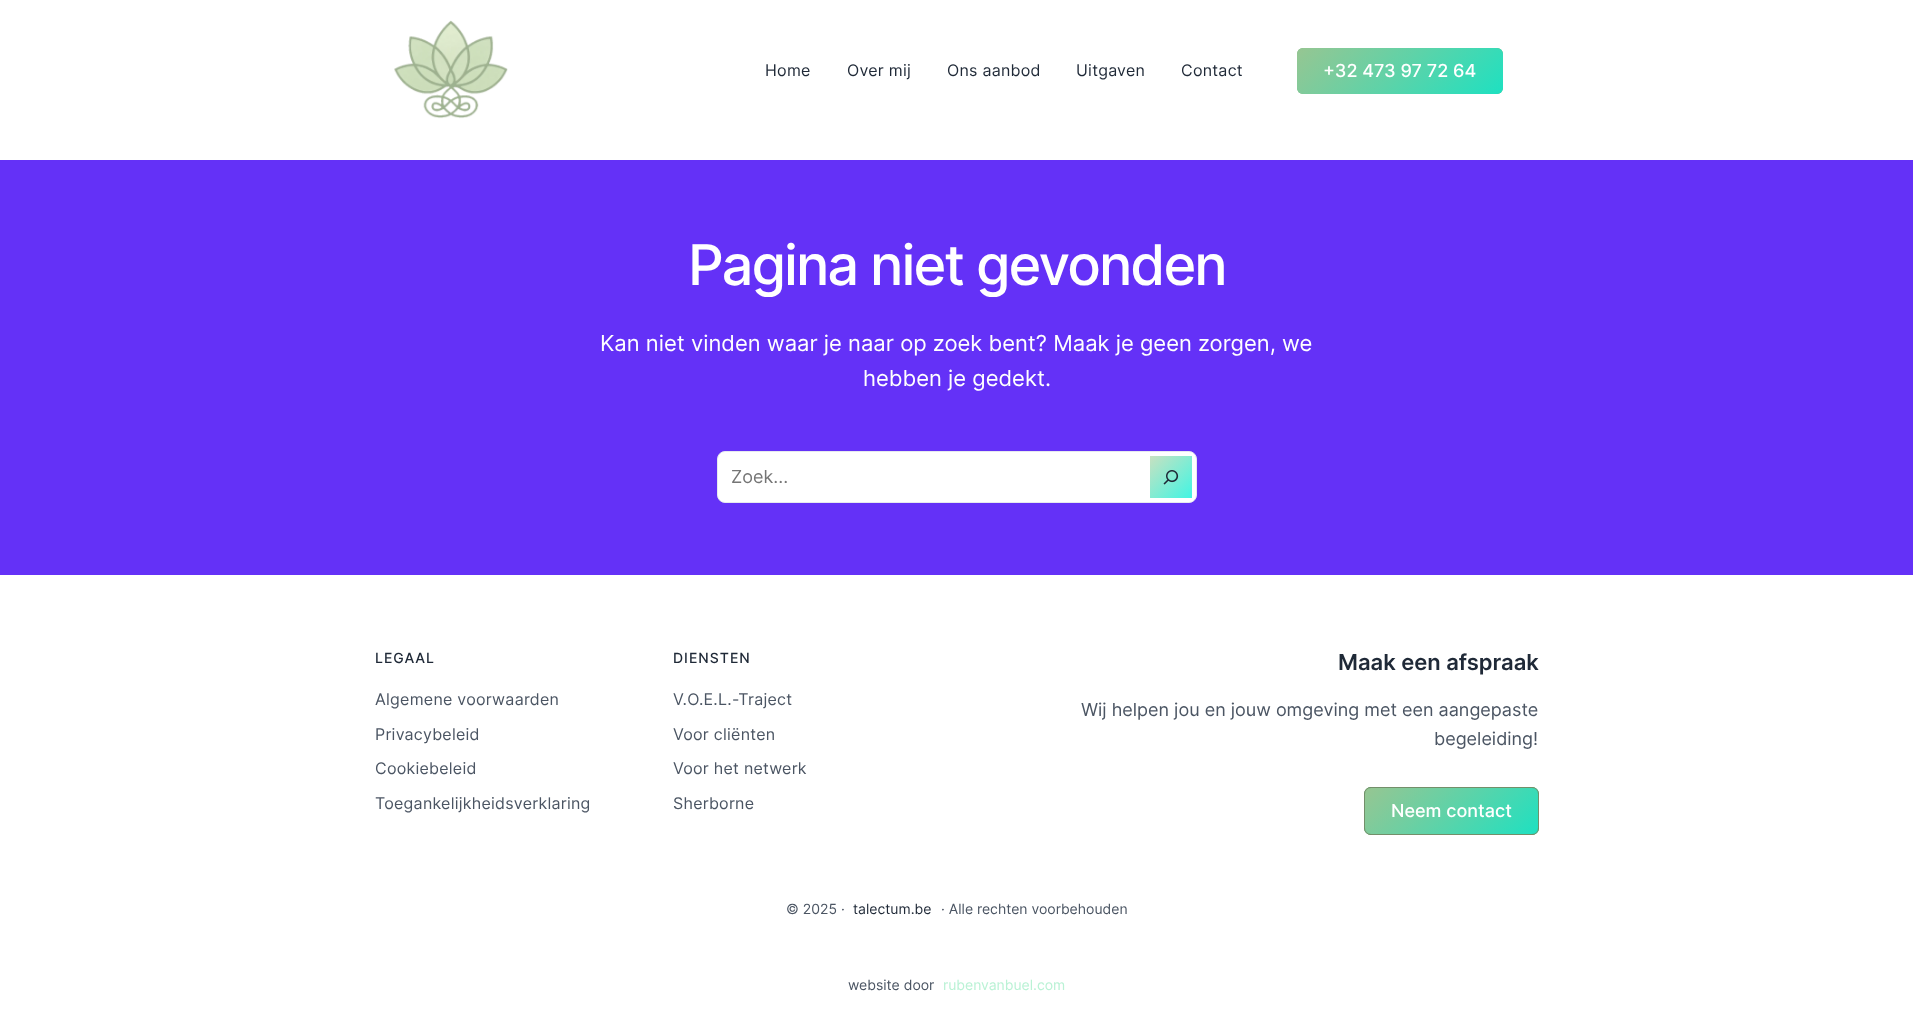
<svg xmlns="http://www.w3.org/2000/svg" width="1913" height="1027">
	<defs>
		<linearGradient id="g1" gradientUnits="userSpaceOnUse" x1="1337" y1="8" x2="1463" y2="134"><stop offset="0" stop-color="#B2D6A9" stop-opacity="0.72" /><stop offset="1" stop-color="#11F2DC" stop-opacity="0.8" /></linearGradient>
		<linearGradient id="g2" gradientUnits="userSpaceOnUse" x1="1150" y1="456" x2="1192" y2="498"><stop offset="0" stop-color="#C8E1C1" /><stop offset="1" stop-color="#41F5E3" /></linearGradient>
		<clipPath id="clip1"><rect x="1364" y="787" width="175" height="48" rx="7" /></clipPath>
		<linearGradient id="g3" gradientUnits="userSpaceOnUse" x1="1397" y1="756" x2="1506" y2="866"><stop offset="0" stop-color="#B2D6A9" stop-opacity="0.72" /><stop offset="1" stop-color="#11F2DC" stop-opacity="0.8" /></linearGradient>
	</defs>
	<rect width="100%" height="100%" fill="#FFFFFF" />
	<image x="394" y="20" width="114" height="99" href="assets/img1.png" />
	<g font-family="Inter" font-size="16" letter-spacing="0.25" fill="#1F2937">
		<text x="765" y="76">Home</text>
		<text x="847" y="76">Over mij</text>
		<text x="947" y="76">Ons aanbod</text>
		<text x="1076" y="76">Uitgaven</text>
		<text x="1181" y="76">Contact</text>
	</g>
	<rect x="1297" y="48" width="206" height="46" rx="6" fill="#4F9C56" />
	<rect x="1297" y="48" width="206" height="46" rx="6" fill="url(#g1)" />
	<text x="1323" y="77" font-family="Inter" font-size="18" font-weight="500" fill="#FFFFFF">+32 473 97 72 64</text>
	<rect x="0" y="160" width="1913" height="415" fill="#6431F7" />
	<text x="688" y="285" font-family="Inter" font-size="56" font-weight="500" letter-spacing="-2" fill="#FFFFFF">Pagina niet gevonden</text>
	<g font-family="Inter" font-size="22" fill="#FFFFFF">
		<text x="600" y="351">Kan niet vinden waar je naar op zoek bent? Maak je geen zorgen, we</text>
		<text x="863" y="386">hebben je gedekt.</text>
	</g>
	<rect x="717.5" y="451.5" width="479" height="51" rx="7.5" fill="#FFFFFF" stroke="#E6E9EF" />
	<text x="731" y="483" font-family="Inter" font-size="18" fill="#757575">Zoek...</text>
	<rect x="1150" y="456" width="42" height="42" fill="url(#g2)" />
	<image x="1163" y="470" width="16" height="15" href="assets/img2.png" />
	<text x="375" y="663" font-family="Inter" font-size="14" font-weight="500" letter-spacing="1" fill="#1F2937">LEGAAL</text>
	<g font-family="Inter" font-size="16" letter-spacing="0.25" fill="#4B5563">
		<text x="375" y="705">Algemene voorwaarden</text>
		<text x="375" y="740">Privacybeleid</text>
		<text x="375" y="774">Cookiebeleid</text>
		<text x="375" y="809">Toegankelijkheidsverklaring</text>
	</g>
	<text x="673" y="663" font-family="Inter" font-size="14" font-weight="500" letter-spacing="1" fill="#1F2937">DIENSTEN</text>
	<g font-family="Inter" font-size="16" letter-spacing="0.25" fill="#4B5563">
		<text x="673" y="705">V.O.E.L.-Traject</text>
		<text x="673" y="740">Voor cliënten</text>
		<text x="673" y="774">Voor het netwerk</text>
		<text x="673" y="809">Sherborne</text>
	</g>
	<text x="1338" y="670" font-family="Inter" font-size="22" font-weight="600" fill="#1F2937">Maak een afspraak</text>
	<g font-family="Inter" font-size="18" fill="#4B5563">
		<text x="1081" y="716">Wij helpen jou en jouw omgeving met een aangepaste</text>
		<text x="1434" y="745">begeleiding!</text>
	</g>
	<rect x="1364" y="787" width="175" height="48" rx="7" fill="#4F9C56" />
	<g clip-path="url(#clip1)">
		<rect x="1365" y="788" width="173" height="46" fill="url(#g3)" />
	</g>
	<rect x="1364.5" y="787.5" width="174" height="47" rx="6.5" fill="none" stroke="#738F6A" />
	<text x="1391" y="817" font-family="Inter" font-size="18" font-weight="500" fill="#FFFFFF">Neem contact</text>
	<text x="786" y="914" font-family="Inter" font-size="14" fill="#4B5563">© 2025 ·</text>
	<text x="853" y="914" font-family="Inter" font-size="14" fill="#1F2937">talectum.be</text>
	<g font-family="Inter" font-size="14" fill="#4B5563">
		<text x="941" y="914">· Alle rechten voorbehouden</text>
		<text x="848" y="990">website door</text>
	</g>
	<text x="943" y="990" font-family="Inter" font-size="14" fill="#BAF2D5">rubenvanbuel.com</text>
</svg>
